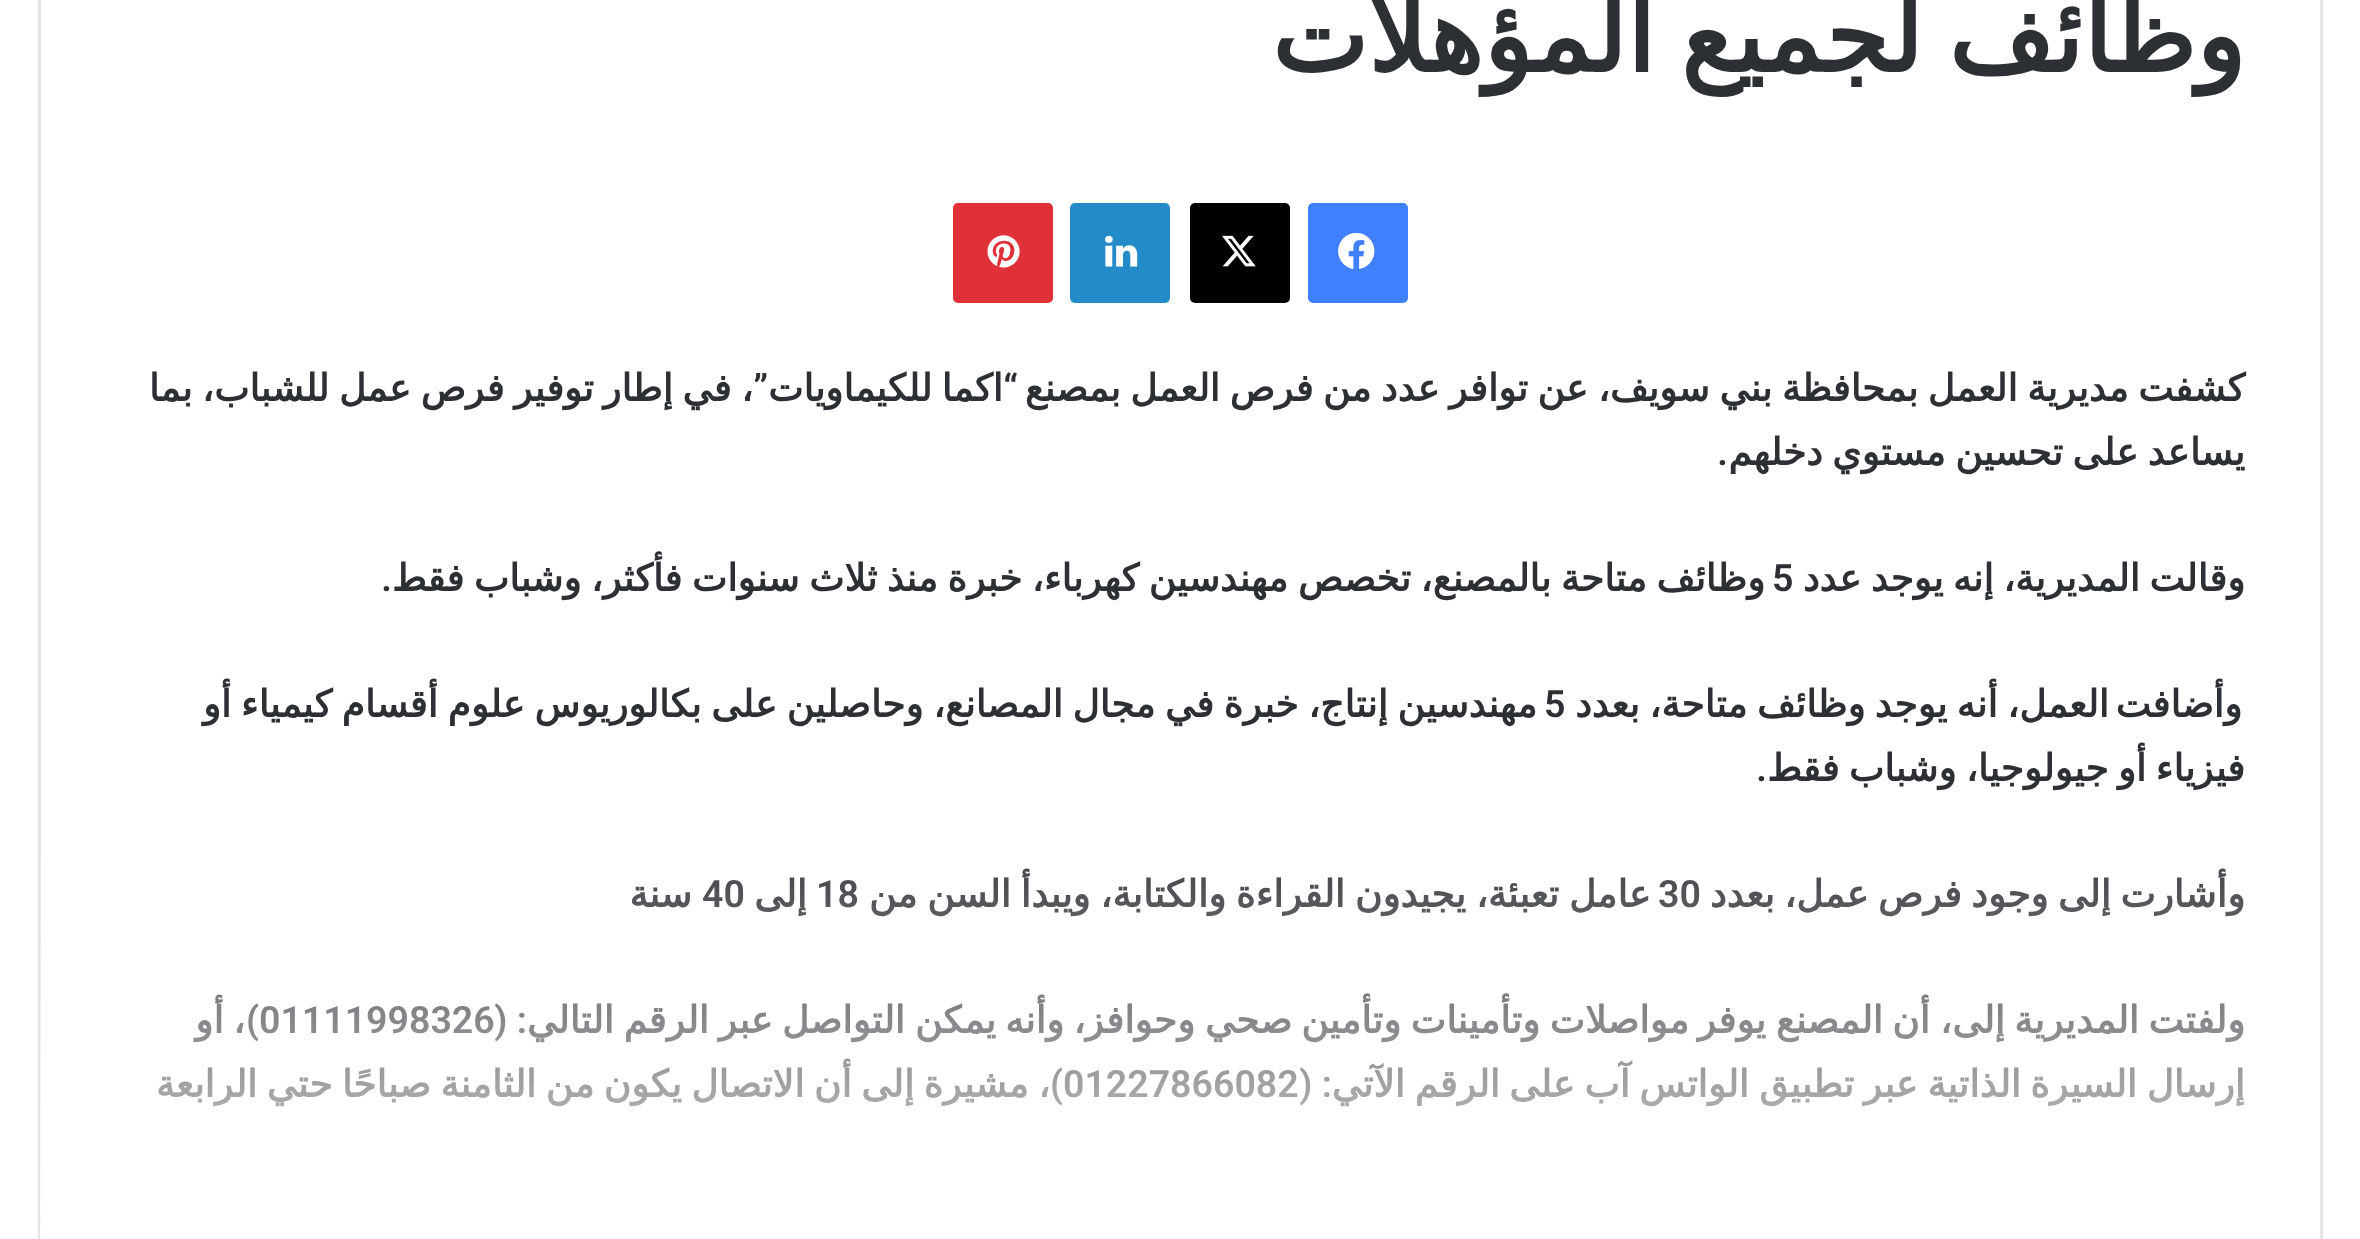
<svg xmlns="http://www.w3.org/2000/svg" width="2360" height="1239">
	<defs>
		<linearGradient id="g1" gradientUnits="userSpaceOnUse" x1="1180" y1="307" x2="1180" y2="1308"><stop offset="0.5" stop-color="#FFFFFF" stop-opacity="0" /><stop offset="1" stop-color="#FFFFFF" /></linearGradient>
	</defs>
	<rect width="100%" height="100%" fill="#FFFFFF" />
	<rect x="39.5" y="-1.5" width="2282" height="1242" fill="none" stroke="#E6E6E6" stroke-width="3" />
	<text x="2245" y="72" word-spacing="-7" font-family="DejaVu Sans" font-size="102.5" font-weight="700" direction="rtl" fill="#2C2F34">وظائف لجميع المؤهلات</text>
	<rect x="1308" y="203" width="100" height="100" rx="5" fill="#4080FF" />
	<image x="1338" y="232" width="37" height="37" href="assets/img1.png" />
	<rect x="1190" y="203" width="100" height="100" rx="5" fill="#000000" />
	<image x="1222" y="235" width="34" height="32" href="assets/img2.png" />
	<rect x="1070" y="203" width="100" height="100" rx="5" fill="#238CC8" />
	<image x="1105" y="235" width="33" height="32" href="assets/img3.png" />
	<rect x="953" y="203" width="100" height="100" rx="5" fill="#E13138" />
	<image x="987" y="235" width="33" height="33" href="assets/img4.png" />
	<g font-family="DejaVu Sans" font-size="37.5" font-weight="700" direction="rtl" fill="#2C2F34">
		<text x="753" y="401" word-spacing="-2.5">، في إطار توفير فرص عمل للشباب، بما</text>
		<text x="2245" y="401" word-spacing="-2.5">كشفت مديرية العمل بمحافظة بني سويف، عن توافر عدد من فرص العمل بمصنع</text>
	</g>
	<text x="1018" y="401" font-family="Roboto" font-size="37.5" font-weight="600" direction="rtl" fill="#2C2F34">“</text>
	<text x="1003" y="401" word-spacing="-2.5" font-family="DejaVu Sans" font-size="37.5" font-weight="700" direction="rtl" fill="#2C2F34">اكما للكيماويات</text>
	<text x="768" y="401" font-family="Roboto" font-size="37.5" font-weight="600" direction="rtl" fill="#2C2F34">”</text>
	<text x="2245" y="465" word-spacing="-2.6" font-family="DejaVu Sans" font-size="37.5" font-weight="700" direction="rtl" fill="#2C2F34">يساعد على تحسين مستوي دخلهم</text>
	<text x="1728" y="465" font-family="Roboto" font-size="37.5" font-weight="600" direction="rtl" fill="#2C2F34">.</text>
	<g font-family="DejaVu Sans" font-size="37.5" font-weight="700" direction="rtl" fill="#2C2F34">
		<text x="2245" y="591" word-spacing="-2.6">وقالت المديرية، إنه يوجد عدد</text>
		<text x="1765" y="591" word-spacing="-2.4">وظائف متاحة بالمصنع، تخصص مهندسين كهرباء، خبرة منذ ثلاث سنوات فأكثر، وشباب فقط</text>
	</g>
	<text x="1772" y="591" font-family="Roboto" font-size="37.5" font-weight="600" fill="#2C2F34">5</text>
	<text x="392" y="591" font-family="Roboto" font-size="37.5" font-weight="600" direction="rtl" fill="#2C2F34">.</text>
	<g font-family="DejaVu Sans" font-size="37.5" font-weight="700" direction="rtl" fill="#2C2F34">
		<text x="2109" y="717" word-spacing="-2.6">العمل، أنه يوجد وظائف متاحة، بعدد</text>
		<text x="2242" y="717">وأضافت</text>
		<text x="1537" y="717" word-spacing="-2.4">مهندسين إنتاج، خبرة في مجال المصانع، وحاصلين على بكالوريوس علوم أقسام كيمياء أو</text>
	</g>
	<text x="1544" y="717" font-family="Roboto" font-size="37.5" font-weight="600" fill="#2C2F34">5</text>
	<text x="2245" y="781" word-spacing="-2.6" font-family="DejaVu Sans" font-size="37.5" font-weight="700" direction="rtl" fill="#2C2F34">فيزياء أو جيولوجيا، وشباب فقط</text>
	<text x="1767" y="781" font-family="Roboto" font-size="37.5" font-weight="600" direction="rtl" fill="#2C2F34">.</text>
	<g font-family="DejaVu Sans" font-size="37.5" font-weight="700" direction="rtl" fill="#2C2F34">
		<text x="2245" y="907" word-spacing="-2.6">وأشارت إلى وجود فرص عمل، بعدد</text>
		<text x="1651" y="907" word-spacing="-2.25">عامل تعبئة، يجيدون القراءة والكتابة، ويبدأ السن من</text>
	</g>
	<g font-family="Roboto" font-size="37.5" font-weight="600" fill="#2C2F34">
		<text x="1658" y="907">30</text>
		<text x="816" y="907">18</text>
	</g>
	<text x="807" y="907" font-family="DejaVu Sans" font-size="37.5" font-weight="700" direction="rtl" fill="#2C2F34">إلى</text>
	<text x="702" y="907" font-family="Roboto" font-size="37.5" font-weight="600" fill="#2C2F34">40</text>
	<g font-family="DejaVu Sans" font-size="37.5" font-weight="700" direction="rtl" fill="#2C2F34">
		<text x="692" y="907">سنة</text>
		<text x="2245" y="1033">ولفتت</text>
		<text x="2139" y="1033">المديرية</text>
		<text x="2005" y="1033">إلى،</text>
		<text x="1930" y="1033">أن</text>
		<text x="1883" y="1033">المصنع</text>
		<text x="1766" y="1033">يوفر</text>
		<text x="1689" y="1033">مواصلات</text>
		<text x="1540" y="1033">وتأمينات</text>
		<text x="1401" y="1033">وتأمين</text>
		<text x="1292" y="1033">صحي</text>
		<text x="1195" y="1033">وحوافز،</text>
		<text x="1064" y="1033">وأنه</text>
		<text x="996" y="1033">يمكن</text>
		<text x="905" y="1033">التواصل</text>
		<text x="773" y="1033">عبر</text>
		<text x="709" y="1033">الرقم</text>
		<text x="614" y="1033">التالي</text>
	</g>
	<text x="527" y="1033" font-family="Roboto" font-size="37.5" font-weight="600" direction="rtl" fill="#2C2F34">: (</text>
	<text x="259" y="1033" font-family="Roboto" font-size="37.5" font-weight="600" fill="#2C2F34">01111998326</text>
	<text x="259" y="1033" font-family="Roboto" font-size="37.5" font-weight="600" direction="rtl" fill="#2C2F34">)</text>
	<g font-family="DejaVu Sans" font-size="37.5" font-weight="700" direction="rtl" fill="#2C2F34">
		<text x="245" y="1033" word-spacing="-2.6">، أو</text>
		<text x="2245" y="1097">إرسال</text>
		<text x="2137" y="1097">السيرة</text>
		<text x="2021" y="1097">الذاتية</text>
		<text x="1918" y="1097">عبر</text>
		<text x="1854" y="1097">تطبيق</text>
		<text x="1749" y="1097">الواتس</text>
		<text x="1630" y="1097">آب</text>
		<text x="1575" y="1097">على</text>
		<text x="1500" y="1097">الرقم</text>
		<text x="1405" y="1097">الآتي</text>
	</g>
	<text x="1332" y="1097" font-family="Roboto" font-size="37.5" font-weight="600" direction="rtl" fill="#2C2F34">: (</text>
	<text x="1063" y="1097" font-family="Roboto" font-size="37.5" font-weight="600" fill="#2C2F34">01227866082</text>
	<text x="1063" y="1097" font-family="Roboto" font-size="37.5" font-weight="600" direction="rtl" fill="#2C2F34">)</text>
	<text x="1050" y="1097" word-spacing="-2.6" font-family="DejaVu Sans" font-size="37.5" font-weight="700" direction="rtl" fill="#2C2F34">، مشيرة إلى أن الاتصال يكون من الثامنة صباحًا حتي الرابعة</text>
	<rect x="40" y="860" width="2216" height="379" fill="url(#g1)" />
</svg>
